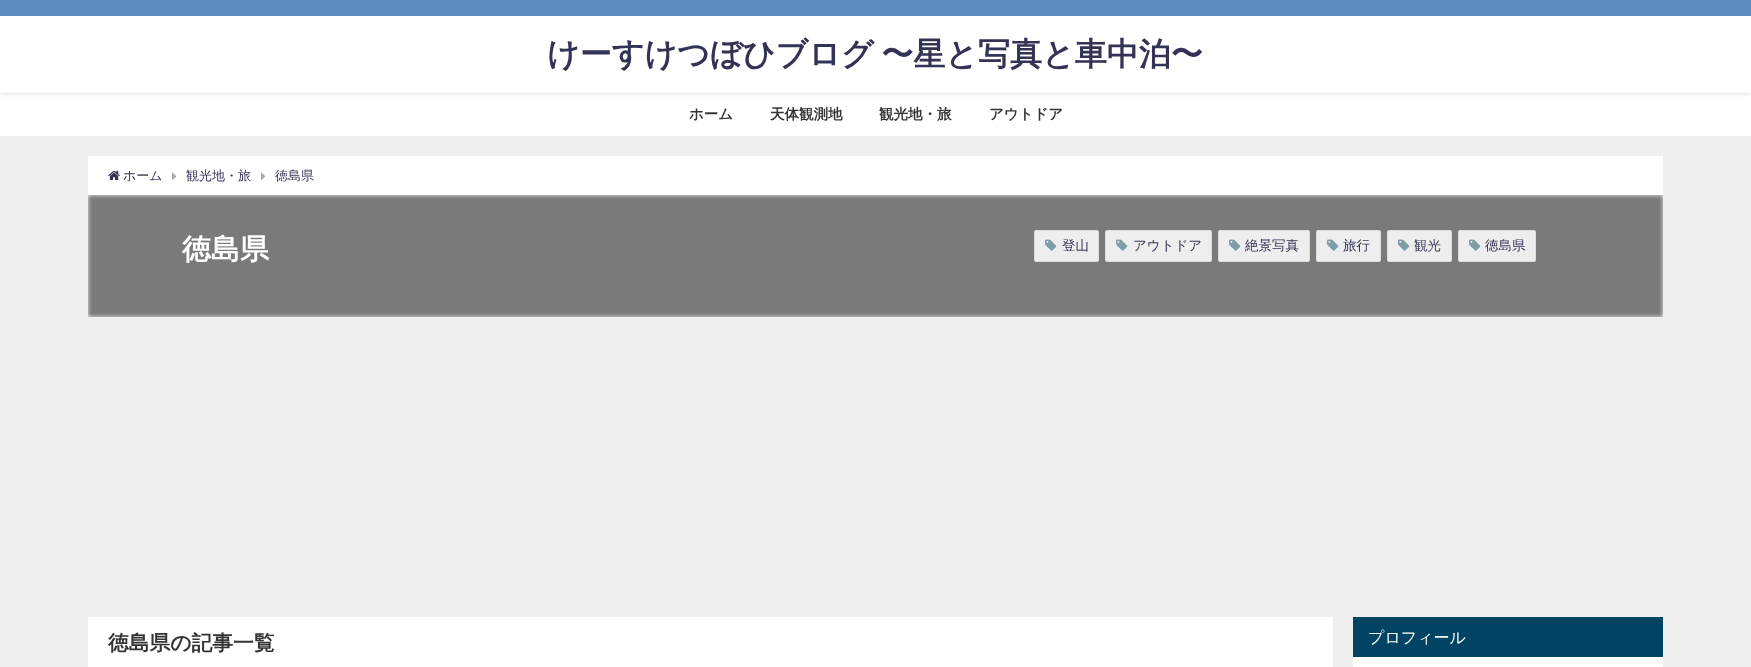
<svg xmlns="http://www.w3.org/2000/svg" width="1751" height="667">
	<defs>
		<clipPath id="clip1"><rect x="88" y="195" width="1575" height="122" /></clipPath>
	</defs>
	<rect width="100%" height="100%" fill="#EFEFEF" />
	<rect x="0" y="93" width="1751" height="43" fill="#FFFFFF" />
	<rect x="0" y="0" width="1751" height="93" fill="#000000" fill-opacity="0.2" filter="blur(2px)" />
	<rect x="0" y="16" width="1751" height="77" fill="#FFFFFF" />
	<rect x="0" y="0" width="1751" height="16" fill="#5D8AC1" />
	<text x="547" y="65" word-spacing="-2" font-family="WenQuanYi Zen Hei" font-size="32" font-weight="700" fill="#333355">けーすけつぼひブログ 〜星と写真と車中泊〜</text>
	<g font-family="WenQuanYi Zen Hei" font-size="14.5" font-weight="700" fill="#333333">
		<text x="689" y="119">ホーム</text>
		<text x="770" y="119">天体観測地</text>
		<text x="879" y="119">観光地・旅</text>
		<text x="989" y="119">アウトドア</text>
	</g>
	<g clip-path="url(#clip1)">
		<rect x="88" y="195" width="1575" height="122" fill="#7A7A7A" filter="blur(2px)" />
	</g>
	<rect x="88" y="156" width="1575" height="39" fill="#FFFFFF" />
	<image x="108" y="170" width="12" height="10" href="assets/img1.png" />
	<text x="123" y="180" font-family="WenQuanYi Zen Hei" font-size="13" font-weight="500" fill="#333355">ホーム</text>
	<image x="172" y="172" width="5" height="8" href="assets/img2.png" />
	<text x="186" y="180" font-family="WenQuanYi Zen Hei" font-size="13" font-weight="500" fill="#333355">観光地・旅</text>
	<image x="261" y="172" width="5" height="8" href="assets/img2.png" />
	<text x="275" y="180" font-family="WenQuanYi Zen Hei" font-size="13" font-weight="500" fill="#333355">徳島県</text>
	<text x="182" y="259" font-family="WenQuanYi Zen Hei" font-size="29" font-weight="700" fill="#FFFFFF">徳島県</text>
	<rect x="1034.5" y="230.5" width="64" height="31" rx="1.5" fill="#EEEEEE" stroke="#DDDDDD" />
	<image x="1045" y="239" width="12" height="12" href="assets/img3.png" />
	<text x="1062" y="250" font-family="WenQuanYi Zen Hei" font-size="13.5" font-weight="500" fill="#333355">登山</text>
	<rect x="1105.5" y="230.5" width="106" height="31" rx="1.5" fill="#EEEEEE" stroke="#DDDDDD" />
	<image x="1116" y="239" width="12" height="12" href="assets/img3.png" />
	<text x="1133" y="250" font-family="WenQuanYi Zen Hei" font-size="13.5" font-weight="500" fill="#333355">アウトドア</text>
	<rect x="1218.5" y="230.5" width="91" height="31" rx="1.5" fill="#EEEEEE" stroke="#DDDDDD" />
	<image x="1229" y="239" width="12" height="12" href="assets/img3.png" />
	<text x="1245" y="250" font-family="WenQuanYi Zen Hei" font-size="13.5" font-weight="500" fill="#333355">絶景写真</text>
	<rect x="1316.5" y="230.5" width="64" height="31" rx="1.5" fill="#EEEEEE" stroke="#DDDDDD" />
	<image x="1327" y="239" width="12" height="12" href="assets/img3.png" />
	<text x="1343" y="250" font-family="WenQuanYi Zen Hei" font-size="13.5" font-weight="500" fill="#333355">旅行</text>
	<rect x="1387.5" y="230.5" width="64" height="31" rx="1.5" fill="#EEEEEE" stroke="#DDDDDD" />
	<image x="1398" y="239" width="12" height="12" href="assets/img3.png" />
	<text x="1414" y="250" font-family="WenQuanYi Zen Hei" font-size="13.5" font-weight="500" fill="#333355">観光</text>
	<rect x="1458.5" y="230.5" width="77" height="31" rx="1.5" fill="#EEEEEE" stroke="#DDDDDD" />
	<image x="1469" y="239" width="12" height="12" href="assets/img3.png" />
	<text x="1485" y="250" font-family="WenQuanYi Zen Hei" font-size="13.5" font-weight="500" fill="#333355">徳島県</text>
	<rect x="88" y="617" width="1245" height="50" fill="#FFFFFF" />
	<text x="108" y="650" font-family="WenQuanYi Zen Hei" font-size="20.75" font-weight="700" fill="#333333">徳島県の記事一覧</text>
	<rect x="1353" y="657" width="310" height="10" fill="#FFFFFF" />
	<rect x="1353" y="617" width="310" height="40" fill="#004363" />
	<text x="1368" y="643" font-family="WenQuanYi Zen Hei" font-size="16" font-weight="500" fill="#FFFFFF">プロフィール</text>
</svg>
